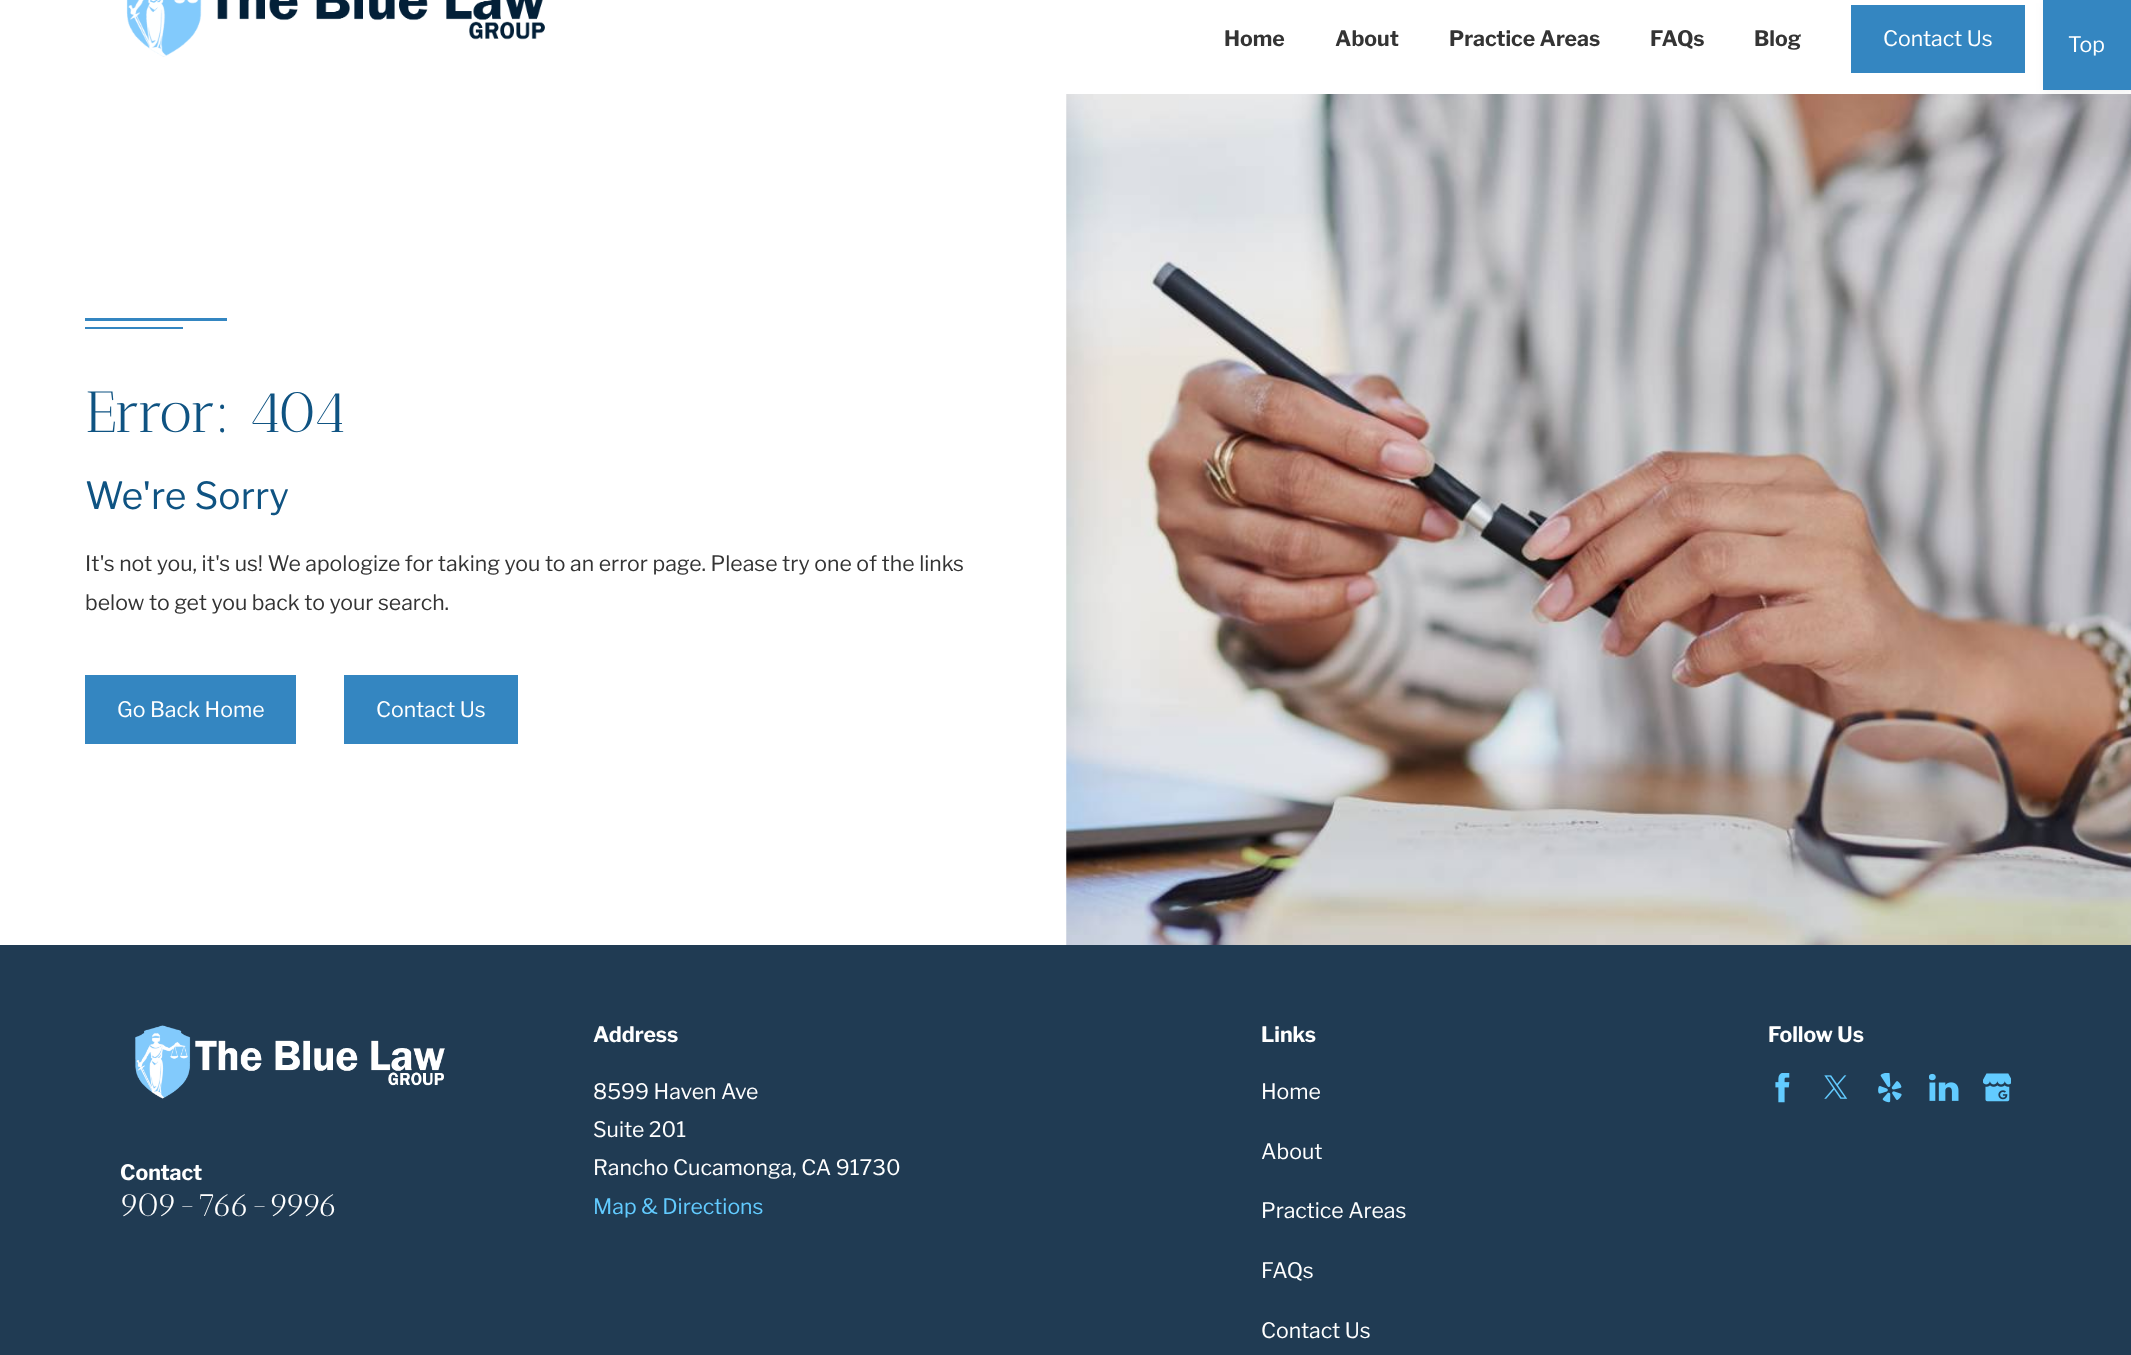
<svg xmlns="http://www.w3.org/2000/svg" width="2131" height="1355">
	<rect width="100%" height="100%" fill="#FFFFFF" />
	<image x="126" y="0" width="419" height="57" href="assets/img1.png" />
	<g font-family="Libre Franklin" font-size="21.25" font-weight="700" fill="#343434">
		<text x="1224" y="46">Home</text>
		<text x="1335" y="46">About</text>
		<text x="1449" y="46">Practice Areas</text>
		<text x="1650" y="46">FAQs</text>
		<text x="1754" y="46">Blog</text>
	</g>
	<rect x="1851" y="5" width="174" height="68" fill="#3486C1" />
	<text x="1883" y="46" font-family="Libre Franklin" font-size="21.25" fill="#FFFFFF">Contact Us</text>
	<image x="1066" y="94" width="1065" height="851" href="assets/img2.png" />
	<rect x="2045" y="3" width="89" height="90" fill="#000000" fill-opacity="0.05" filter="blur(5.5px)" />
	<rect x="2043" y="0" width="88" height="90" fill="#3486C1" />
	<text x="2068" y="52" font-family="Libre Franklin" font-size="21.25" fill="#FFFFFF">Top</text>
	<path d="M85 321V318H227V321ZM183 329H85V327H183Z" fill="#3486C1" />
	<text x="85" y="432" font-family="Antic Didone" font-size="58" fill="#0F5382">Error: 404</text>
	<text x="85" y="509" font-family="Libre Franklin" font-size="37.25" fill="#0F5382">We're Sorry</text>
	<g font-family="Libre Franklin" font-size="21.25" fill="#343434">
		<text x="85" y="571">It's not you, it's us! We apologize for taking you to an error page. Please try one of the links</text>
		<text x="85" y="610">below to get you back to your search.</text>
	</g>
	<rect x="85" y="675" width="211" height="69" fill="#3486C1" />
	<text x="117" y="717" font-family="Libre Franklin" font-size="21.25" fill="#FFFFFF">Go Back Home</text>
	<rect x="344" y="675" width="174" height="69" fill="#3486C1" />
	<text x="376" y="717" font-family="Libre Franklin" font-size="21.25" fill="#FFFFFF">Contact Us</text>
	<rect x="0" y="945" width="2131" height="410" fill="#203B53" />
	<image x="135" y="1025" width="310" height="74" href="assets/img3.png" />
	<text x="120" y="1180" font-family="Libre Franklin" font-size="21.25" font-weight="700" fill="#FFFFFF">Contact</text>
	<text x="120" y="1216" font-family="Antic Didone" font-size="33" fill="#FFFFFF">909-766-9996</text>
	<text x="593" y="1042" font-family="Libre Franklin" font-size="21.25" font-weight="700" fill="#FFFFFF">Address</text>
	<g font-family="Libre Franklin" font-size="21.25" fill="#FFFFFF">
		<text x="593" y="1099">8599 Haven Ave</text>
		<text x="593" y="1137">Suite 201</text>
		<text x="593" y="1175">Rancho Cucamonga, CA 91730</text>
	</g>
	<text x="593" y="1214" font-family="Libre Franklin" font-size="21.25" fill="#62CBFF">Map &amp; Directions</text>
	<text x="1261" y="1042" font-family="Libre Franklin" font-size="21.25" font-weight="700" fill="#FFFFFF">Links</text>
	<g font-family="Libre Franklin" font-size="21.25" fill="#FFFFFF">
		<text x="1261" y="1099">Home</text>
		<text x="1261" y="1159">About</text>
		<text x="1261" y="1218">Practice Areas</text>
		<text x="1261" y="1278">FAQs</text>
		<text x="1261" y="1338">Contact Us</text>
	</g>
	<text x="1768" y="1042" font-family="Libre Franklin" font-size="21.25" font-weight="700" fill="#FFFFFF">Follow Us</text>
	<image x="1775" y="1073" width="15" height="30" href="assets/img4.png" />
	<image x="1824" y="1075" width="24" height="24" href="assets/img5.png" />
	<image x="1878" y="1073" width="24" height="30" href="assets/img6.png" />
	<image x="1929" y="1073" width="30" height="28" href="assets/img7.png" />
	<image x="1983" y="1073" width="28" height="29" href="assets/img8.png" />
</svg>
